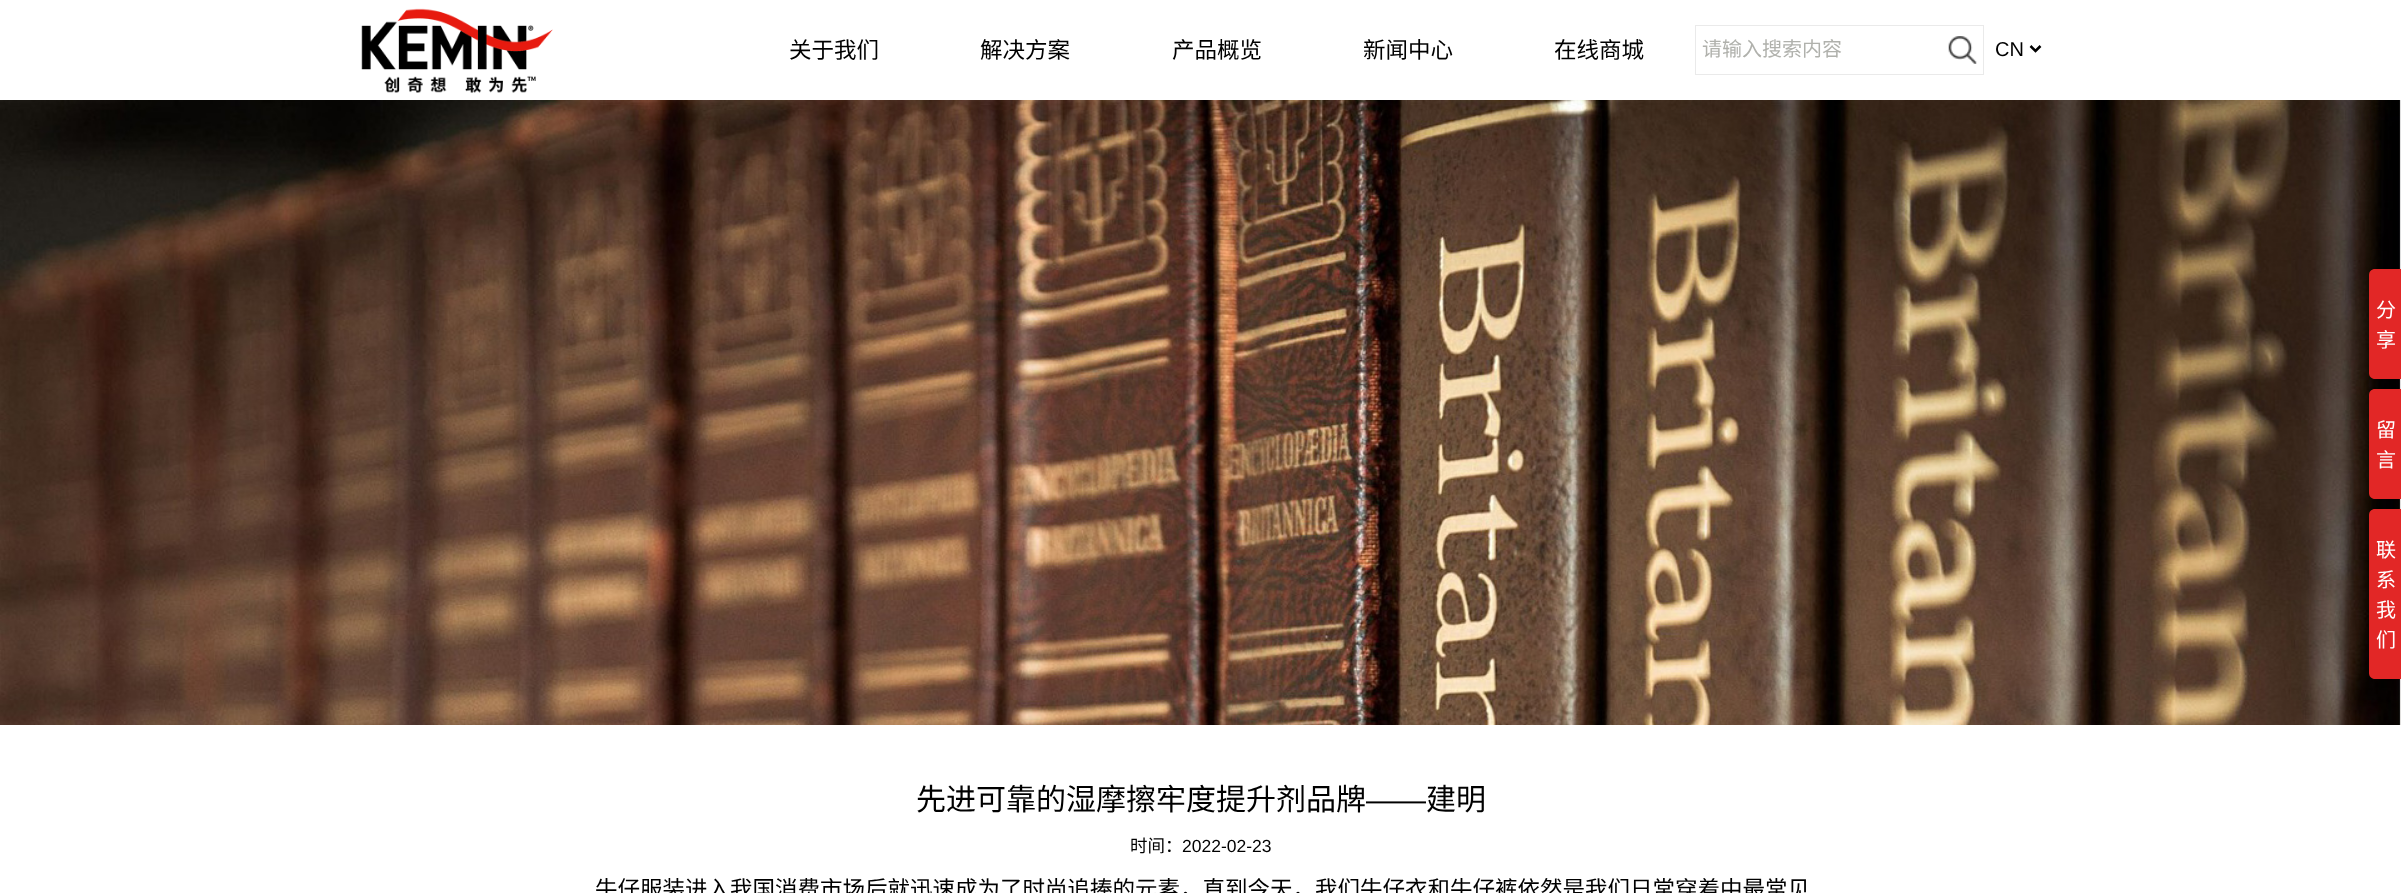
<svg xmlns="http://www.w3.org/2000/svg" width="2401" height="893">
	<rect width="100%" height="100%" fill="#FFFFFF" />
	<image x="361" y="8" width="192" height="85" href="assets/img1.png" />
	<g font-family="Noto Sans CJK SC" font-size="22.5" fill="#000000">
		<text x="789" y="58">关于我们</text>
		<text x="980" y="58">解决方案</text>
		<text x="1172" y="58">产品概览</text>
		<text x="1363" y="58">新闻中心</text>
		<text x="1554" y="58">在线商城</text>
	</g>
	<rect x="1695.5" y="25.5" width="288" height="49" fill="none" stroke="#EAEAEA" />
	<text x="1702" y="56" font-family="Noto Sans CJK SC" font-size="20" fill="#B0B1AC">请输入搜索内容</text>
	<image x="1948" y="36" width="29" height="28" href="assets/img2.png" />
	<path d="M2030.5 46L2035.5 51L2040.5 46" fill="none" stroke="#000000" stroke-width="2.5" />
	<text x="1995" y="56" font-family="Liberation Sans" font-size="20" fill="#000000">CN</text>
	<image x="0" y="100" width="2401" height="625" href="assets/img3.png" />
	<path d="M2375 269H2401V379H2375C2371.5 379 2369 376.5 2369 373V275C2369 271.5 2371.5 269 2375 269Z" fill="#E22726" />
	<g font-family="Noto Sans CJK SC" font-size="20" fill="#FFFFFF">
		<text x="2376" y="317">分</text>
		<text x="2376" y="347">享</text>
	</g>
	<path d="M2375 389H2401V499H2375C2371.5 499 2369 496.5 2369 493V395C2369 391.5 2371.5 389 2375 389Z" fill="#E22726" />
	<g font-family="Noto Sans CJK SC" font-size="20" fill="#FFFFFF">
		<text x="2376" y="437">留</text>
		<text x="2376" y="467">言</text>
	</g>
	<path d="M2375 509H2401V679H2375C2371.5 679 2369 676.5 2369 673V515C2369 511.5 2371.5 509 2375 509Z" fill="#E22726" />
	<g font-family="Noto Sans CJK SC" font-size="20" fill="#FFFFFF">
		<text x="2376" y="557">联</text>
		<text x="2376" y="587">系</text>
		<text x="2376" y="617">我</text>
		<text x="2376" y="647">们</text>
	</g>
	<text x="916" y="810" font-family="Noto Sans CJK SC" font-size="30" fill="#000000">先进可靠的湿摩擦牢度提升剂品牌</text>
	<text x="1366" y="810" font-family="Liberation Sans" font-size="30" fill="#000000">——</text>
	<text x="1426" y="810" font-family="Noto Sans CJK SC" font-size="30" fill="#000000">建明</text>
	<text x="1130" y="852" font-family="Noto Sans CJK SC" font-size="17.5" fill="#000000">时间：</text>
	<text x="1182" y="852" font-family="Liberation Sans" font-size="17.5" fill="#000000">2022-02-23</text>
	<text x="595" y="897" font-family="Noto Sans CJK SC" font-size="22.5" fill="#000000">牛仔服装进入我国消费市场后就迅速成为了时尚追捧的元素，直到今天，我们牛仔衣和牛仔裤依然是我们日常穿着中最常见</text>
</svg>
